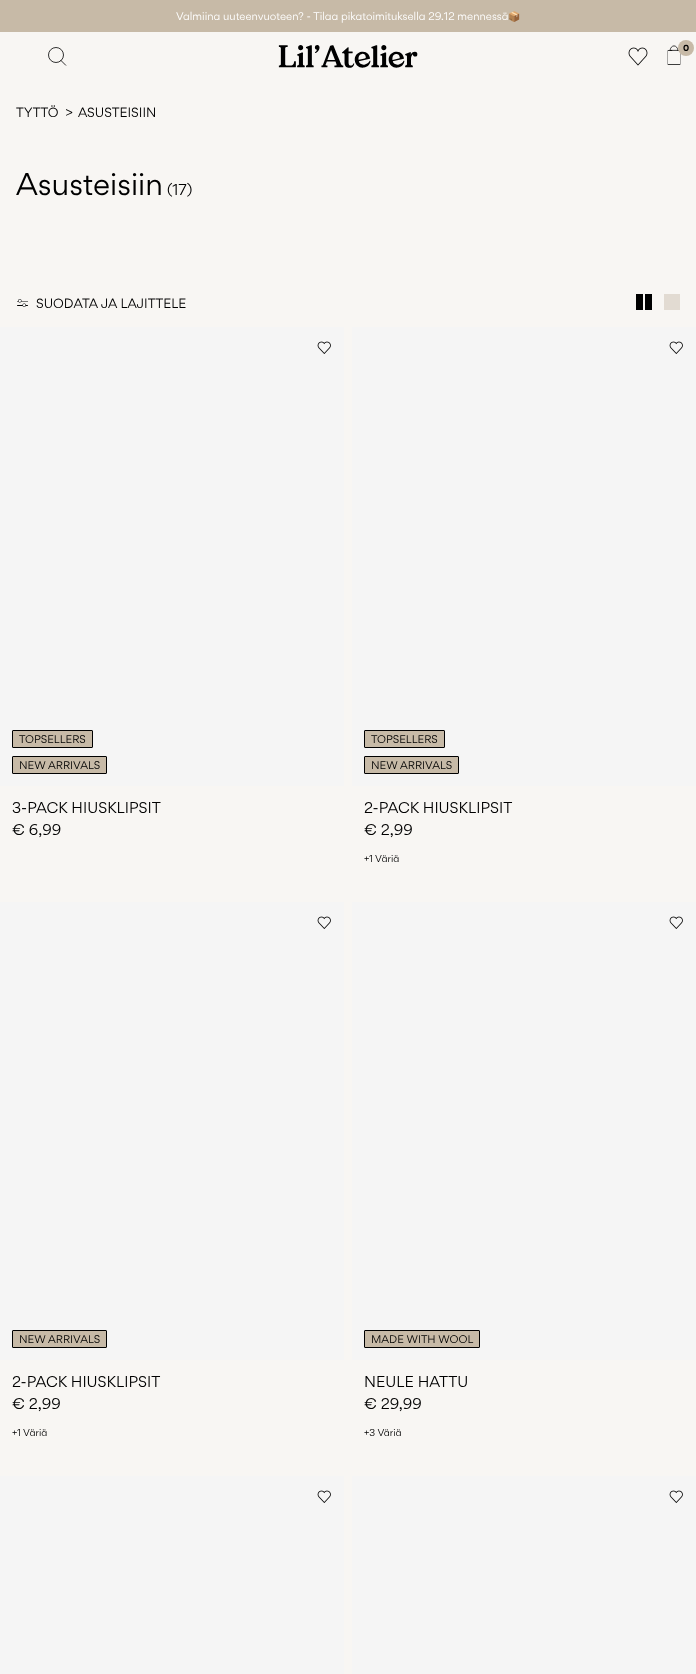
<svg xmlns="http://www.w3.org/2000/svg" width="696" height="1674">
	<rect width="100%" height="100%" fill="#F8F6F3" />
	<rect x="0" y="0" width="696" height="32" fill="#C7BAA7" />
	<text x="176" y="20" font-family="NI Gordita" font-size="10" fill="#FFFFFF">Valmiina uuteenvuoteen? - Tilaa pikatoimituksella 29.12 mennessä</text>
	<text x="508" y="20" font-family="Noto Color Emoji" font-size="10" fill="#FFFFFF">📦</text>
	<image x="278" y="45" width="140" height="23" href="assets/img1.png" />
	<circle cx="56" cy="55" r="7.5" fill="none" stroke="#000000" stroke-width="0.8" />
	<path d="M60.5 60L66 65.5" fill="none" stroke="#000000" stroke-width="0.8" />
	<image x="628" y="47" width="20" height="19" href="assets/img2.png" />
	<image x="667" y="45" width="14" height="20" href="assets/img3.png" />
	<circle cx="686" cy="48" r="8" fill="#C7BAA7" />
	<text x="683" y="51" font-family="NI Gordita" font-size="8" font-weight="700" fill="#000000">0</text>
	<g font-family="NI Gordita" font-size="12" fill="#000000">
		<text x="16" y="117">TYTTÖ</text>
		<text x="65" y="117">&gt;</text>
		<text x="78" y="117">ASUSTEISIIN</text>
	</g>
	<text x="16" y="195" font-family="NI Gordita" font-size="28" fill="#000000">Asusteisiin</text>
	<text x="167" y="195" font-family="NI Gordita" font-size="14" fill="#000000">(17)</text>
	<image x="17" y="299" width="11" height="8" href="assets/img4.png" />
	<text x="36" y="308" font-family="NI Gordita" font-size="12" fill="#000000">SUODATA JA LAJITTELE</text>
	<rect x="636" y="294" width="7" height="16" fill="#000000" />
	<rect x="645" y="294" width="7" height="16" fill="#000000" />
	<rect x="664" y="294" width="16" height="16" fill="#E2DBD2" />
	<rect x="0" y="327" width="344" height="459" fill="#F5F5F5" />
	<image x="317" y="341" width="14" height="13" href="assets/img5.png" />
	<rect x="12.5" y="730.5" width="80" height="17" rx="0.5" fill="#C7BAA7" stroke="#000000" />
	<text x="19" y="743" font-family="NI Gordita" font-size="10" fill="#000000">TOPSELLERS</text>
	<rect x="12.5" y="756.5" width="94" height="17" rx="0.5" fill="#C7BAA7" stroke="#000000" />
	<text x="19" y="769" font-family="NI Gordita" font-size="10" fill="#000000">NEW ARRIVALS</text>
	<g font-family="NI Gordita" font-size="14" fill="#000000">
		<text x="12" y="813">3-PACK HIUSKLIPSIT</text>
		<text x="12" y="835">€ 6,99</text>
	</g>
	<rect x="352" y="327" width="344" height="459" fill="#F5F5F5" />
	<image x="669" y="341" width="14" height="13" href="assets/img5.png" />
	<rect x="364.5" y="730.5" width="80" height="17" rx="0.5" fill="#C7BAA7" stroke="#000000" />
	<text x="371" y="743" font-family="NI Gordita" font-size="10" fill="#000000">TOPSELLERS</text>
	<rect x="364.5" y="756.5" width="94" height="17" rx="0.5" fill="#C7BAA7" stroke="#000000" />
	<text x="371" y="769" font-family="NI Gordita" font-size="10" fill="#000000">NEW ARRIVALS</text>
	<g font-family="NI Gordita" font-size="14" fill="#000000">
		<text x="364" y="813">2-PACK HIUSKLIPSIT</text>
		<text x="364" y="835">€ 2,99</text>
	</g>
	<text x="364" y="862" font-family="NI Gordita" font-size="9" fill="#000000">+1 Väriä</text>
	<rect x="0" y="902" width="344" height="458" fill="#F5F5F5" />
	<image x="317" y="916" width="14" height="13" href="assets/img5.png" />
	<rect x="12.5" y="1330.5" width="94" height="17" rx="0.5" fill="#C7BAA7" stroke="#000000" />
	<text x="19" y="1343" font-family="NI Gordita" font-size="10" fill="#000000">NEW ARRIVALS</text>
	<g font-family="NI Gordita" font-size="14" fill="#000000">
		<text x="12" y="1387">2-PACK HIUSKLIPSIT</text>
		<text x="12" y="1409">€ 2,99</text>
	</g>
	<text x="12" y="1436" font-family="NI Gordita" font-size="9" fill="#000000">+1 Väriä</text>
	<rect x="352" y="902" width="344" height="458" fill="#F5F5F5" />
	<image x="669" y="916" width="14" height="13" href="assets/img5.png" />
	<rect x="364.5" y="1330.5" width="115" height="17" rx="0.5" fill="#C7BAA7" stroke="#000000" />
	<text x="371" y="1343" font-family="NI Gordita" font-size="10" fill="#000000">MADE WITH WOOL</text>
	<g font-family="NI Gordita" font-size="14" fill="#000000">
		<text x="364" y="1387">NEULE HATTU</text>
		<text x="364" y="1409">€ 29,99</text>
	</g>
	<text x="364" y="1436" font-family="NI Gordita" font-size="9" fill="#000000">+3 Väriä</text>
	<rect x="0" y="1476" width="344" height="198" fill="#F5F5F5" />
	<image x="317" y="1490" width="14" height="13" href="assets/img5.png" />
	<rect x="352" y="1476" width="344" height="198" fill="#F5F5F5" />
	<image x="669" y="1490" width="14" height="13" href="assets/img5.png" />
</svg>
